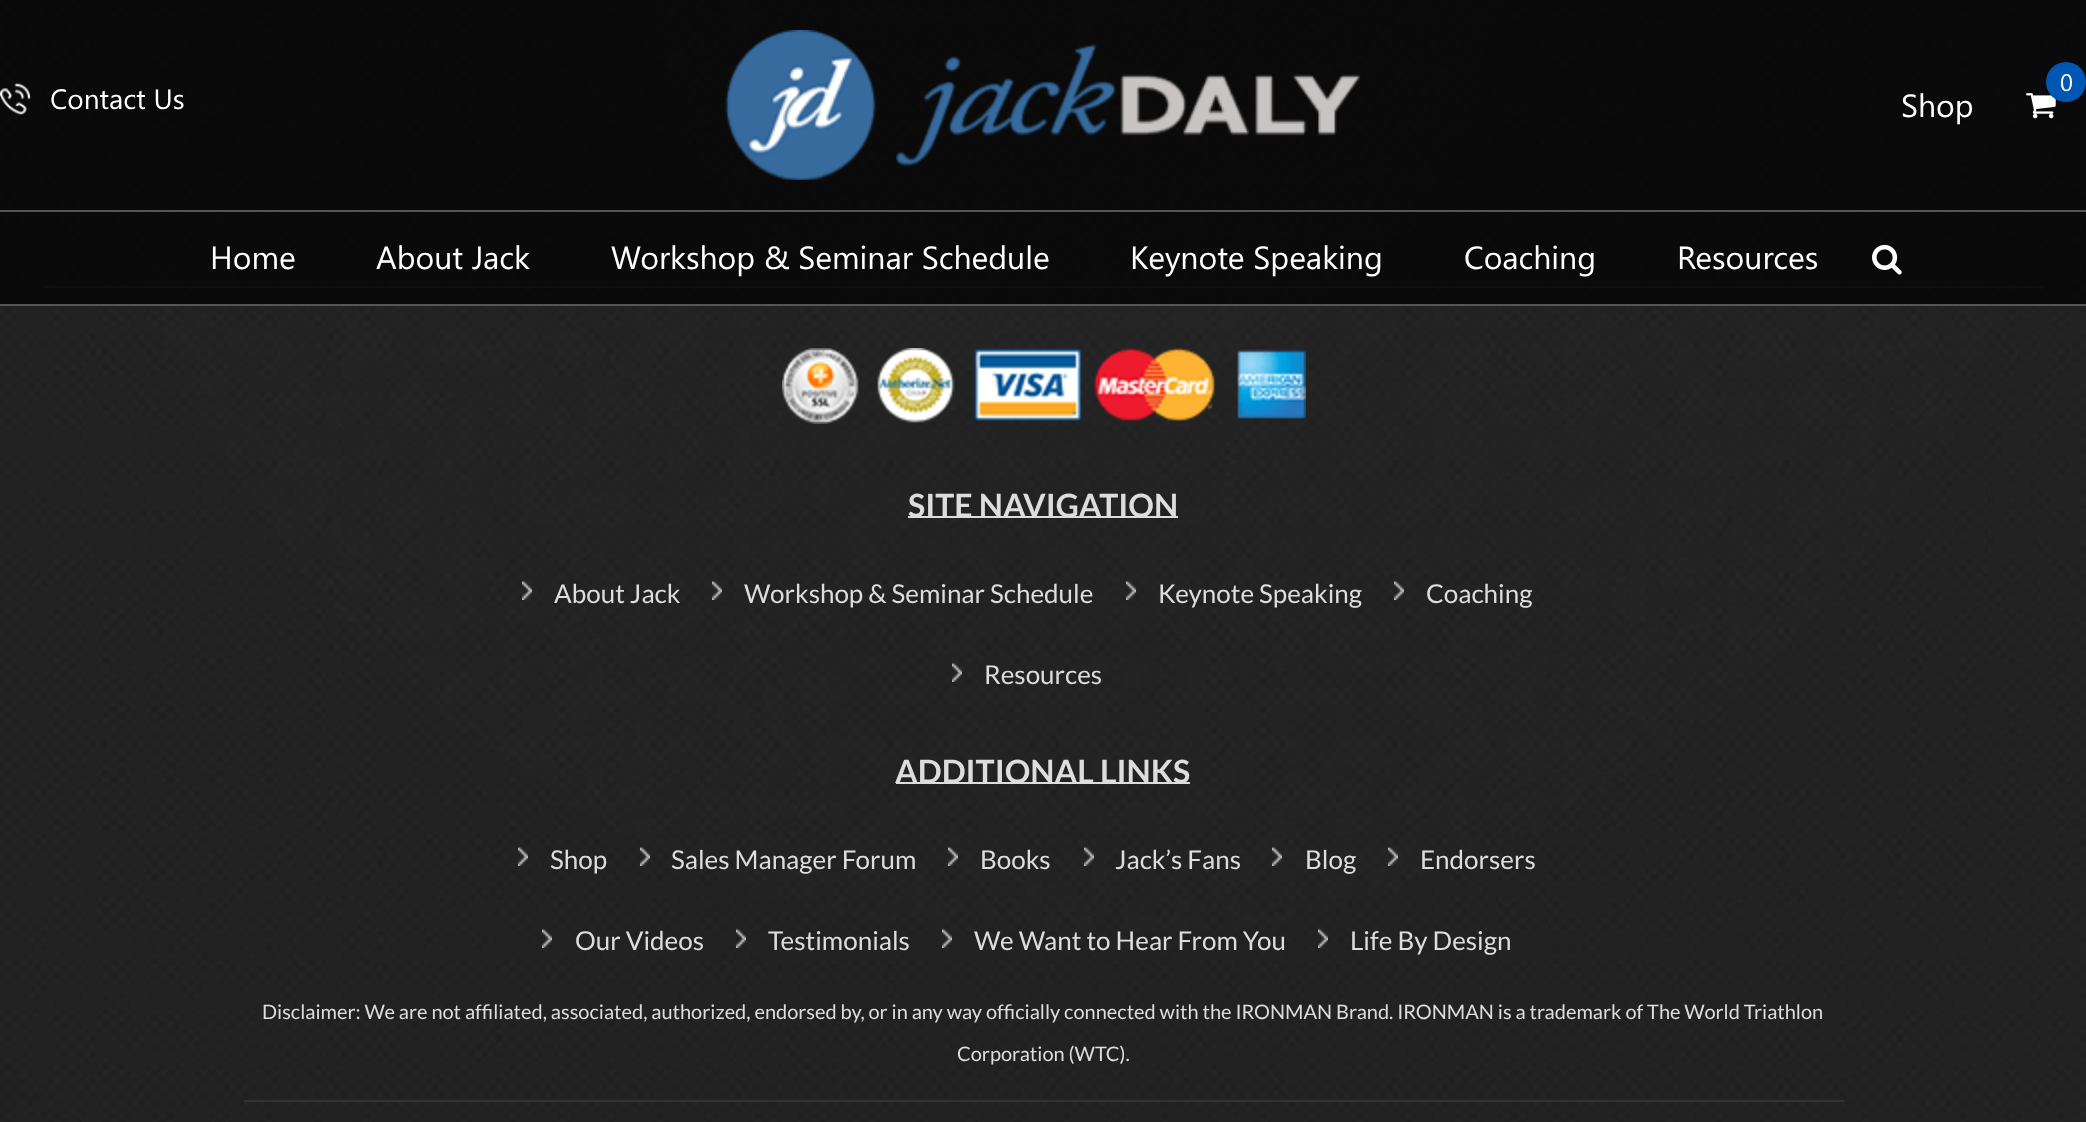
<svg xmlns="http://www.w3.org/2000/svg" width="2086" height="1122">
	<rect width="100%" height="100%" fill="#FFFFFF" />
	<image x="0" y="0" width="2086" height="1122" href="assets/img5.png" />
	<rect x="44" y="286" width="2000" height="2" fill="#333333" />
	<rect x="0" y="0" width="2086" height="304" fill="#000000" fill-opacity="0.7" />
	<image x="0" y="83" width="31" height="32" href="assets/img1.png" />
	<text x="50" y="109" font-family="Segoe UI" font-size="28" fill="#FFFFFF">Contact Us</text>
	<image x="725" y="30" width="636" height="150" href="assets/img2.png" />
	<image x="2026" y="93" width="30" height="26" href="assets/img3.png" />
	<circle cx="2066" cy="82" r="20" fill="#0056B3" />
	<text x="2060" y="91" font-family="Segoe UI" font-size="24" fill="#FFFFFF">0</text>
	<text x="1901" y="117" font-family="Segoe UI" font-size="32" fill="#FFFFFF">Shop</text>
	<rect x="0" y="210" width="2086" height="2" fill="#555555" />
	<rect x="0" y="304" width="2086" height="2" fill="#555555" />
	<g font-family="Segoe UI" font-size="32" fill="#FFFFFF">
		<text x="210" y="269">Home</text>
		<text x="376" y="269">About Jack</text>
		<text x="611" y="269">Workshop &amp; Seminar Schedule</text>
		<text x="1130" y="269">Keynote Speaking</text>
		<text x="1464" y="269">Coaching</text>
		<text x="1677" y="269">Resources</text>
	</g>
	<image x="1872" y="244" width="30" height="31" href="assets/img4.png" />
	<rect x="244" y="1100" width="1600" height="2" fill="#333333" />
	<image x="782" y="348" width="524" height="76" href="assets/img6.png" />
	<rect x="908" y="516" width="270" height="2" fill="#DDDDDD" />
	<text x="908" y="517" font-family="Lato" font-size="32" font-weight="700" fill="#DDDDDD">SITE NAVIGATION</text>
	<image x="522" y="580" width="10" height="20" href="assets/img7.png" />
	<text x="554" y="603" font-family="Lato" font-size="26" fill="#DDDDDD">About Jack</text>
	<image x="712" y="580" width="10" height="20" href="assets/img8.png" />
	<text x="744" y="603" font-family="Lato" font-size="26" fill="#DDDDDD">Workshop &amp; Seminar Schedule</text>
	<image x="1126" y="580" width="10" height="20" href="assets/img9.png" />
	<text x="1158" y="603" font-family="Lato" font-size="26" fill="#DDDDDD">Keynote Speaking</text>
	<image x="1394" y="580" width="10" height="20" href="assets/img10.png" />
	<text x="1426" y="603" font-family="Lato" font-size="26" fill="#DDDDDD">Coaching</text>
	<image x="952" y="662" width="10" height="20" href="assets/img11.png" />
	<text x="984" y="684" font-family="Lato" font-size="26" fill="#DDDDDD">Resources</text>
	<rect x="896" y="782" width="294" height="2" fill="#DDDDDD" />
	<text x="895" y="783" font-family="Lato" font-size="32" font-weight="700" fill="#DDDDDD">ADDITIONAL LINKS</text>
	<image x="518" y="846" width="10" height="20" href="assets/img12.png" />
	<text x="550" y="869" font-family="Lato" font-size="26" fill="#DDDDDD">Shop</text>
	<image x="640" y="846" width="10" height="20" href="assets/img13.png" />
	<text x="671" y="869" font-family="Lato" font-size="26" fill="#DDDDDD">Sales Manager Forum</text>
	<image x="948" y="846" width="10" height="20" href="assets/img14.png" />
	<text x="980" y="869" font-family="Lato" font-size="26" fill="#DDDDDD">Books</text>
	<image x="1084" y="846" width="10" height="20" href="assets/img15.png" />
	<text x="1115" y="869" font-family="Lato" font-size="26" fill="#DDDDDD">Jack’s Fans</text>
	<image x="1272" y="846" width="10" height="20" href="assets/img16.png" />
	<text x="1305" y="869" font-family="Lato" font-size="26" fill="#DDDDDD">Blog</text>
	<image x="1388" y="846" width="10" height="20" href="assets/img17.png" />
	<text x="1420" y="869" font-family="Lato" font-size="26" fill="#DDDDDD">Endorsers</text>
	<image x="542" y="928" width="10" height="20" href="assets/img18.png" />
	<text x="575" y="950" font-family="Lato" font-size="26" fill="#DDDDDD">Our Videos</text>
	<image x="736" y="928" width="10" height="20" href="assets/img19.png" />
	<text x="768" y="950" font-family="Lato" font-size="26" fill="#DDDDDD">Testimonials</text>
	<image x="942" y="928" width="10" height="20" href="assets/img20.png" />
	<text x="974" y="950" font-family="Lato" font-size="26" fill="#DDDDDD">We Want to Hear From You</text>
	<image x="1318" y="928" width="10" height="20" href="assets/img21.png" />
	<text x="1350" y="950" font-family="Lato" font-size="26" fill="#DDDDDD">Life By Design</text>
	<g font-family="Lato" font-size="20" fill="#DDDDDD">
		<text x="262" y="1019">Disclaimer: We are not affiliated, associated, authorized, endorsed by, or in any way officially connected with the IRONMAN Brand. IRONMAN is a trademark of The World Triathlon</text>
		<text x="957" y="1061">Corporation (WTC).</text>
	</g>
</svg>
